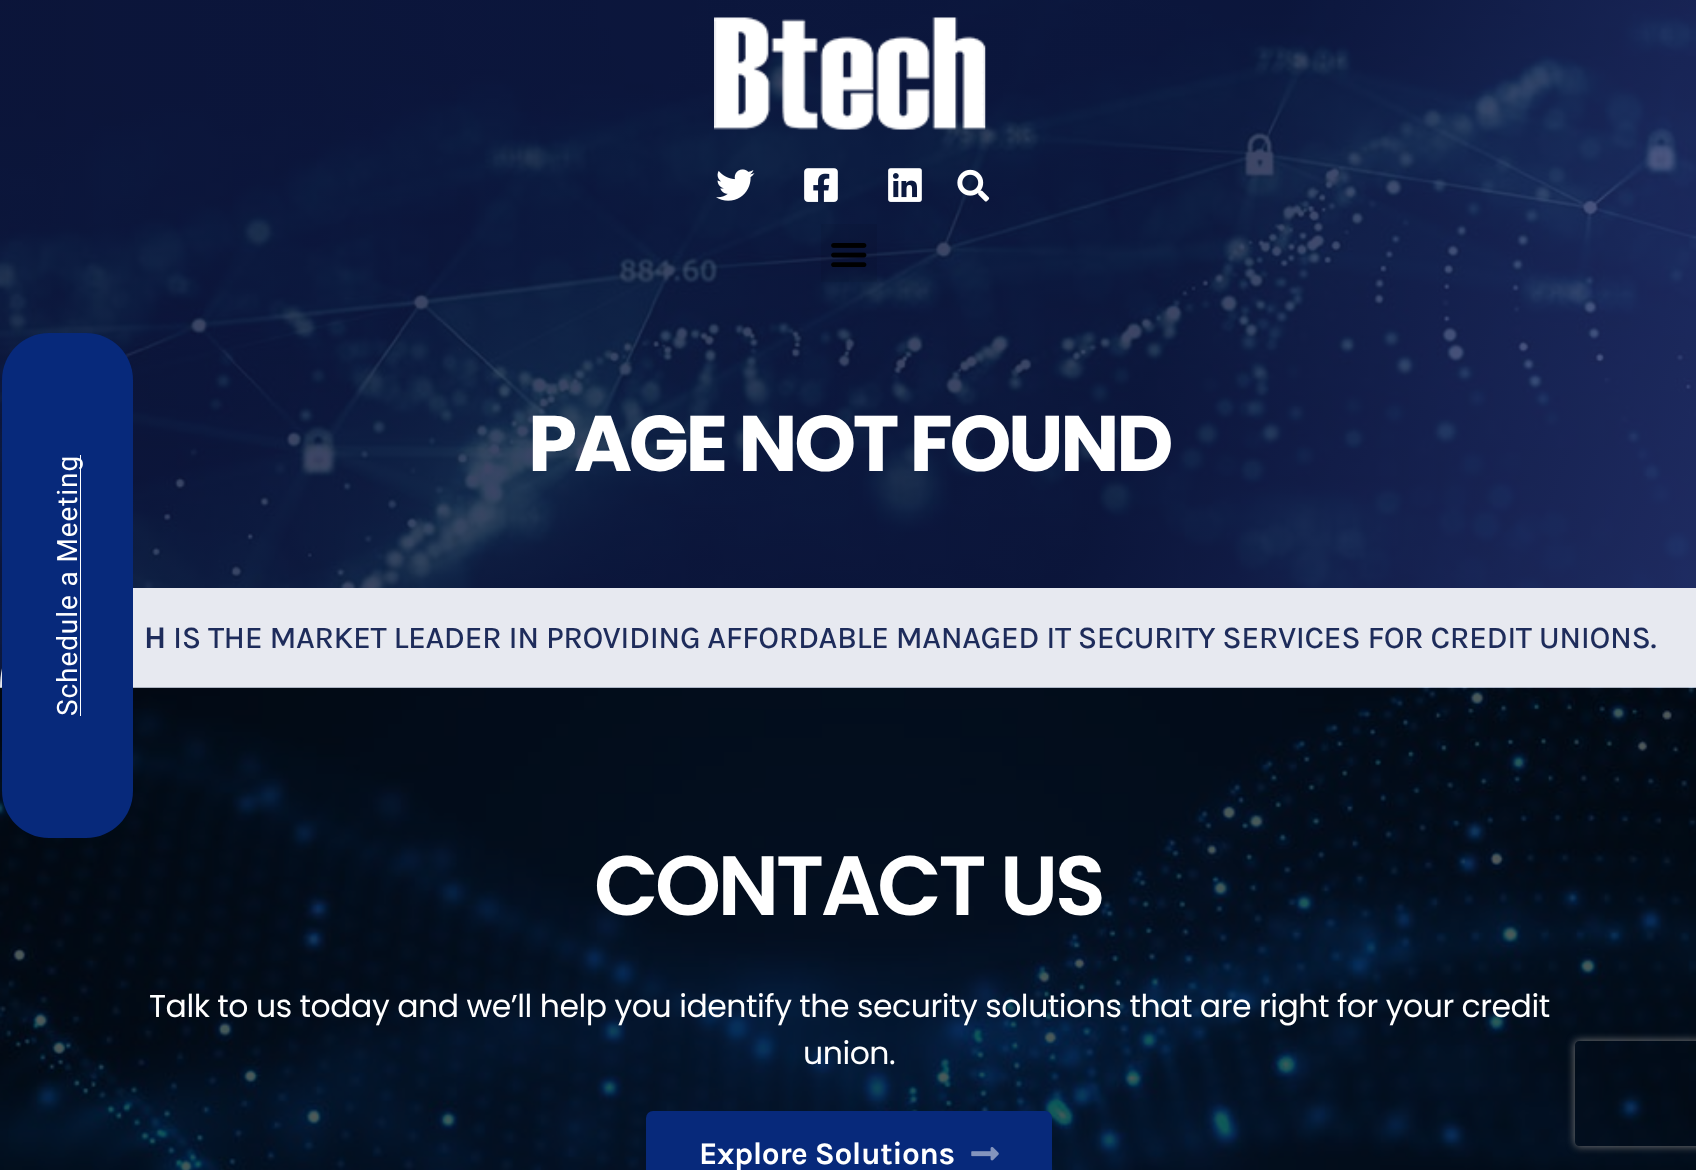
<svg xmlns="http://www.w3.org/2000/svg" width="1696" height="1170">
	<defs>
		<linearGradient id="g1" gradientUnits="userSpaceOnUse" x1="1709" y1="657" x2="-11" y2="31"><stop offset="0" stop-color="#273575" stop-opacity="0.8" /><stop offset="0.34" stop-color="#0E173F" stop-opacity="0.8" /></linearGradient>
		<clipPath id="clip1"><path d="M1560 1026H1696V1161H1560ZM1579 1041H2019C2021 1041 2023 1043 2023 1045V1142C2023 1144 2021 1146 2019 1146H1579C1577 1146 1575 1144 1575 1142V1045C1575 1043 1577 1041 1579 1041Z" clip-rule="evenodd" /></clipPath>
	</defs>
	<rect width="100%" height="100%" fill="#FFFFFF" />
	<image x="0" y="0" width="1696" height="688" href="assets/img1.png" />
	<rect x="0" y="0" width="1696" height="688" fill="url(#g1)" />
	<path d="M100 588H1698V688H0C0 633 45 588 100 588Z" fill="#E7E9F0" />
	<image x="0" y="687" width="1696" height="483" href="assets/img8.png" />
	<path d="M2 791V380C2 354 23 333 49 333H86C112 333 133 354 133 380V791C133 817 112 838 86 838H49C23 838 2 817 2 791Z" fill="#07297B" />
	<rect x="80" y="455" width="1" height="261" fill="#FFFFFF" />
	<text x="77" y="716" transform="rotate(-90 77 716)" font-family="Roboto" font-size="28" letter-spacing="0.9" fill="#FFFFFF">Schedule a Meeting</text>
	<image x="714" y="17" width="272" height="113" href="assets/img2.png" />
	<image x="716" y="169" width="39" height="32" href="assets/img3.png" />
	<image x="804" y="168" width="34" height="34" href="assets/img4.png" />
	<image x="888" y="168" width="34" height="34" href="assets/img5.png" />
	<image x="957" y="169" width="33" height="33" href="assets/img6.png" />
	<rect x="821" y="224" width="56" height="58" fill="#000000" fill-opacity="0.05" />
	<image x="831" y="243" width="36" height="24" href="assets/img7.png" />
	<text x="528" y="471" font-family="Poppins" font-size="78.75" font-weight="700" letter-spacing="-3.25" fill="#FFFFFF">PAGE NOT FOUND</text>
	<text x="144" y="648" font-family="Karla" font-size="31.5" font-weight="700" letter-spacing="-0.47" fill="#1E2C5B">H</text>
	<text x="173" y="648" font-family="Karla" font-size="31.5" font-weight="500" letter-spacing="-0.47" fill="#1E2C5B">IS THE MARKET LEADER IN PROVIDING AFFORDABLE MANAGED IT SECURITY SERVICES FOR CREDIT UNIONS.</text>
	<text x="594" y="915" font-family="Poppins" font-size="84" font-weight="600" letter-spacing="-3.5" fill="#FFFFFF">CONTACT US</text>
	<g font-family="Poppins" font-size="31.5" letter-spacing="-0.47" fill="#FFFFFF">
		<text x="149" y="1017">Talk to us today and we’ll help you identify the security solutions that are right for your credit</text>
		<text x="803" y="1064">union.</text>
	</g>
	<rect x="646" y="1111" width="406" height="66" rx="7" fill="#07297B" />
	<text x="699" y="1164" font-family="Karla" font-size="31.5" font-weight="700" letter-spacing="-0.47" fill="#FFFFFF">Explore Solutions</text>
	<image x="971" y="1147" width="28" height="14" href="assets/img9.png" />
	<g clip-path="url(#clip1)">
		<rect x="1575" y="1041" width="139" height="105" rx="4" fill="#808080" filter="blur(4.5px)" />
	</g>
</svg>
